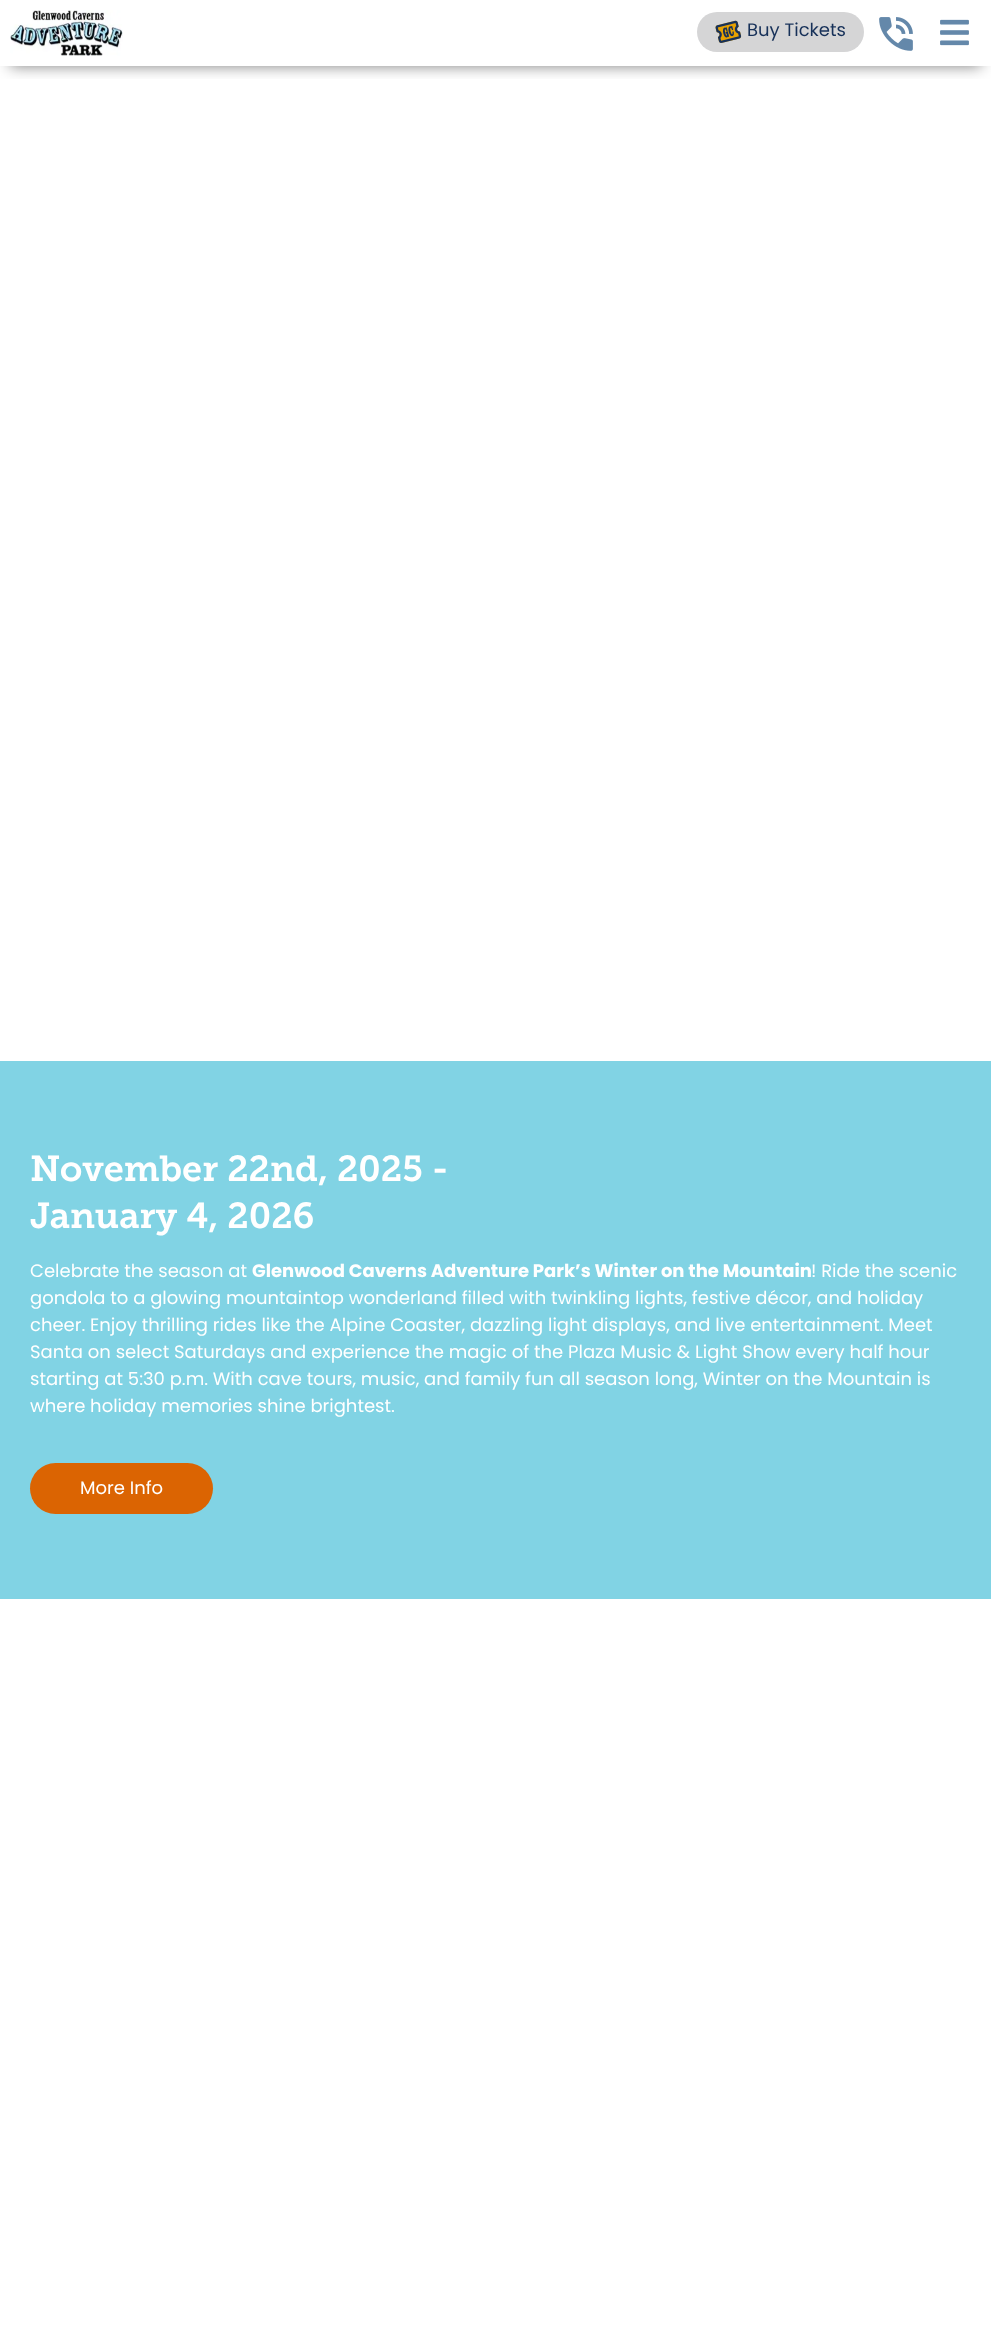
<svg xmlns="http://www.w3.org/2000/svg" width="991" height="2333">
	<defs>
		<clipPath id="clip1"><rect x="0" y="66" width="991" height="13" /></clipPath>
	</defs>
	<rect width="100%" height="100%" fill="#FFFFFF" />
	<g clip-path="url(#clip1)">
		<rect x="10" y="20" width="971" height="46" fill="#000000" fill-opacity="0.5" filter="blur(7.5px)" />
	</g>
	<image x="10" y="10" width="113" height="46" href="assets/img1.png" />
	<rect x="697" y="12" width="167" height="40" rx="20" fill="#D5D5D6" />
	<image x="715" y="20" width="27" height="23" href="assets/img2.png" />
	<text x="747" y="36" font-family="Poppins" font-size="18" fill="#173159">Buy Tickets</text>
	<image x="879" y="17" width="34" height="34" href="assets/img3.png" />
	<image x="940" y="19" width="29" height="27" href="assets/img4.png" />
	<rect x="0" y="1061" width="991" height="538" fill="#81D3E4" />
	<g font-family="Museo Slab" font-size="36" font-weight="600" fill="#FFFFFF">
		<text x="30" y="1181">November 22nd, 2025 -</text>
		<text x="30" y="1228">January 4, 2026</text>
	</g>
	<text x="30" y="1277" font-family="Poppins" font-size="18" fill="#FFFFFF">Celebrate the season at</text>
	<text x="252" y="1277" font-family="Poppins" font-size="18" font-weight="700" fill="#FFFFFF">Glenwood Caverns Adventure Park’s Winter on the Mountain</text>
	<g font-family="Poppins" font-size="18" fill="#FFFFFF">
		<text x="811" y="1277">! Ride the scenic</text>
		<text x="30" y="1304">gondola to a glowing mountaintop wonderland filled with twinkling lights, festive décor, and holiday</text>
		<text x="30" y="1331">cheer. Enjoy thrilling rides like the Alpine Coaster, dazzling light displays, and live entertainment. Meet</text>
		<text x="30" y="1358">Santa on select Saturdays and experience the magic of the Plaza Music &amp; Light Show every half hour</text>
		<text x="30" y="1385">starting at 5:30 p.m. With cave tours, music, and family fun all season long, Winter on the Mountain is</text>
		<text x="30" y="1412">where holiday memories shine brightest.</text>
	</g>
	<rect x="30" y="1463" width="183" height="51" rx="25.5" fill="#DB6402" />
	<text x="80" y="1494" font-family="Poppins" font-size="18" fill="#FFFFFF">More Info</text>
</svg>
